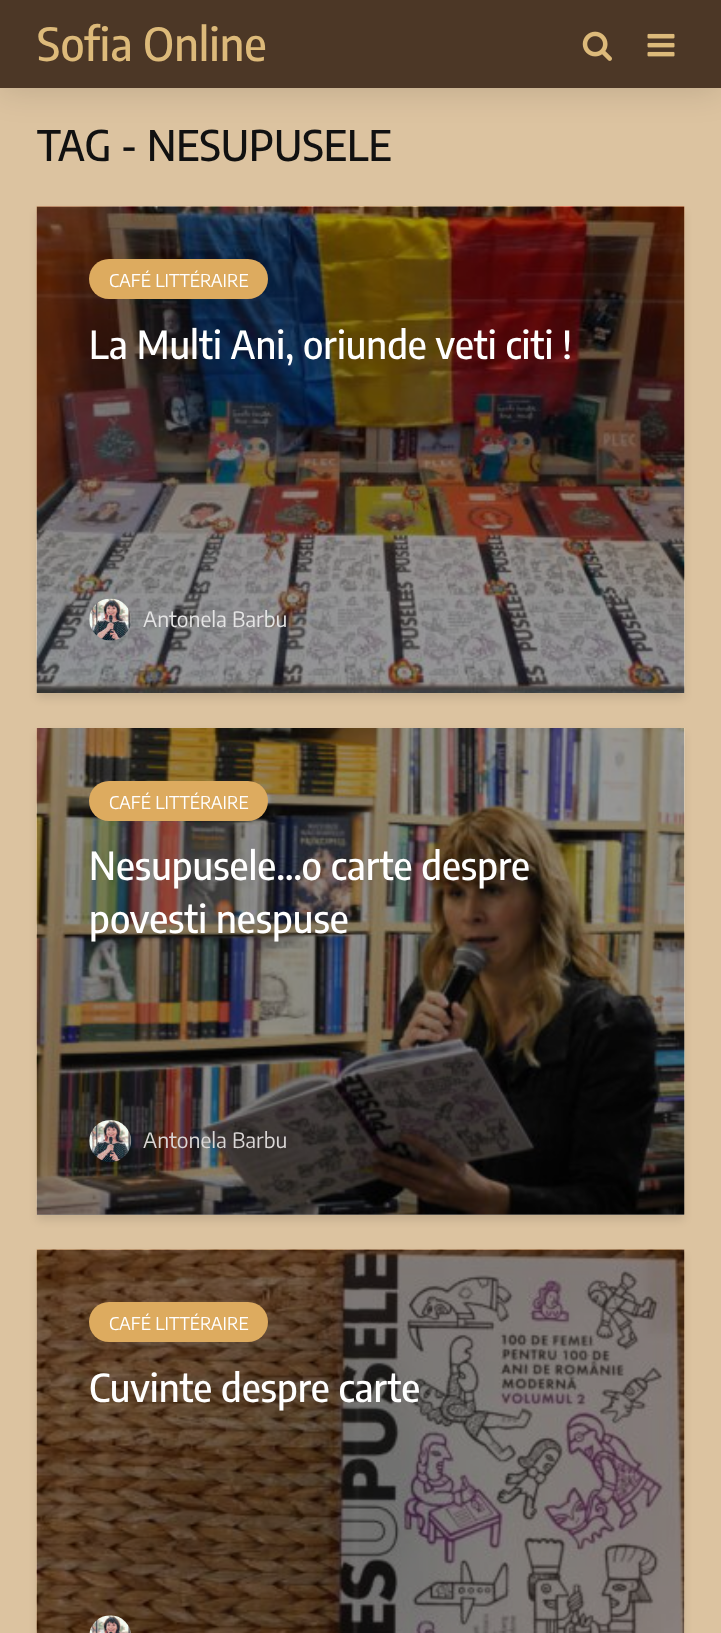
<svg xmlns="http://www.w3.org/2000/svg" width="721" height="1633">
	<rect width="100%" height="100%" fill="#DCC3A0" />
	<rect x="0" y="0" width="721" height="88" fill="#000000" fill-opacity="0.15" filter="blur(17.5px)" />
	<rect x="0" y="0" width="721" height="88" fill="#4C3726" />
	<text x="37" y="61" font-family="Encode Sans Semi Condensed" font-size="45.5" font-weight="500" fill="#DDBA7A">Sofia Online</text>
	<image x="582" y="31" width="30" height="30" href="assets/img1.png" />
	<image x="647" y="33" width="28" height="24" href="assets/img2.png" />
	<text x="37" y="161" font-family="Encode Sans Semi Condensed" font-size="42" font-weight="500" fill="#111111">TAG - NESUPUSELE</text>
	<rect x="37" y="212" width="647" height="486" fill="#000101" fill-opacity="0.1" filter="blur(4.5px)" />
	<image x="36" y="206" width="649" height="487" href="assets/img3.png" />
	<rect x="89" y="259" width="179" height="40" rx="20" fill="#DDAB5F" />
	<text x="109" y="287" font-family="Encode Sans Condensed" font-size="17.5" fill="#FFFFFF">CAFÉ LITTÉRAIRE</text>
	<text x="89" y="359" font-family="Encode Sans Semi Condensed" font-size="38.5" font-weight="500" fill="#FFFFFF">La Multi Ani, oriunde veti citi !</text>
	<image x="89" y="598" width="43" height="43" href="assets/img4.png" />
	<text x="143" y="627" font-family="Encode Sans Condensed" font-size="21" fill="#E4E4E4">Antonela Barbu</text>
	<rect x="37" y="733" width="647" height="487" fill="#000101" fill-opacity="0.1" filter="blur(4.5px)" />
	<rect x="37" y="1214" width="647" height="1" fill="#F1E9DB" />
	<image x="36" y="728" width="649" height="487" href="assets/img5.png" />
	<rect x="37" y="728" width="647" height="487" fill="#000000" fill-opacity="0.4" />
	<rect x="89" y="781" width="179" height="40" rx="20" fill="#DDAB5F" />
	<text x="109" y="809" font-family="Encode Sans Condensed" font-size="17.5" fill="#FFFFFF">CAFÉ LITTÉRAIRE</text>
	<g font-family="Encode Sans Semi Condensed" font-size="38.5" font-weight="500" fill="#FFFFFF">
		<text x="89" y="880">Nesupusele…o carte despre</text>
		<text x="89" y="933">povesti nespuse</text>
	</g>
	<image x="89" y="1120" width="43" height="42" href="assets/img6.png" />
	<text x="143" y="1148" font-family="Encode Sans Condensed" font-size="21" fill="#DAD7D6">Antonela Barbu</text>
	<rect x="37" y="1255" width="647" height="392" fill="#000101" fill-opacity="0.1" filter="blur(4.5px)" />
	<image x="36" y="1249" width="649" height="384" href="assets/img7.png" />
	<rect x="89" y="1302" width="179" height="40" rx="20" fill="#DDAB5F" />
	<text x="109" y="1330" font-family="Encode Sans Condensed" font-size="17.5" fill="#FFFFFF">CAFÉ LITTÉRAIRE</text>
	<text x="89" y="1402" font-family="Encode Sans Semi Condensed" font-size="38.5" font-weight="500" fill="#FFFFFF">Cuvinte despre carte</text>
	<image x="89" y="1615" width="42" height="18" href="assets/img8.png" />
</svg>
